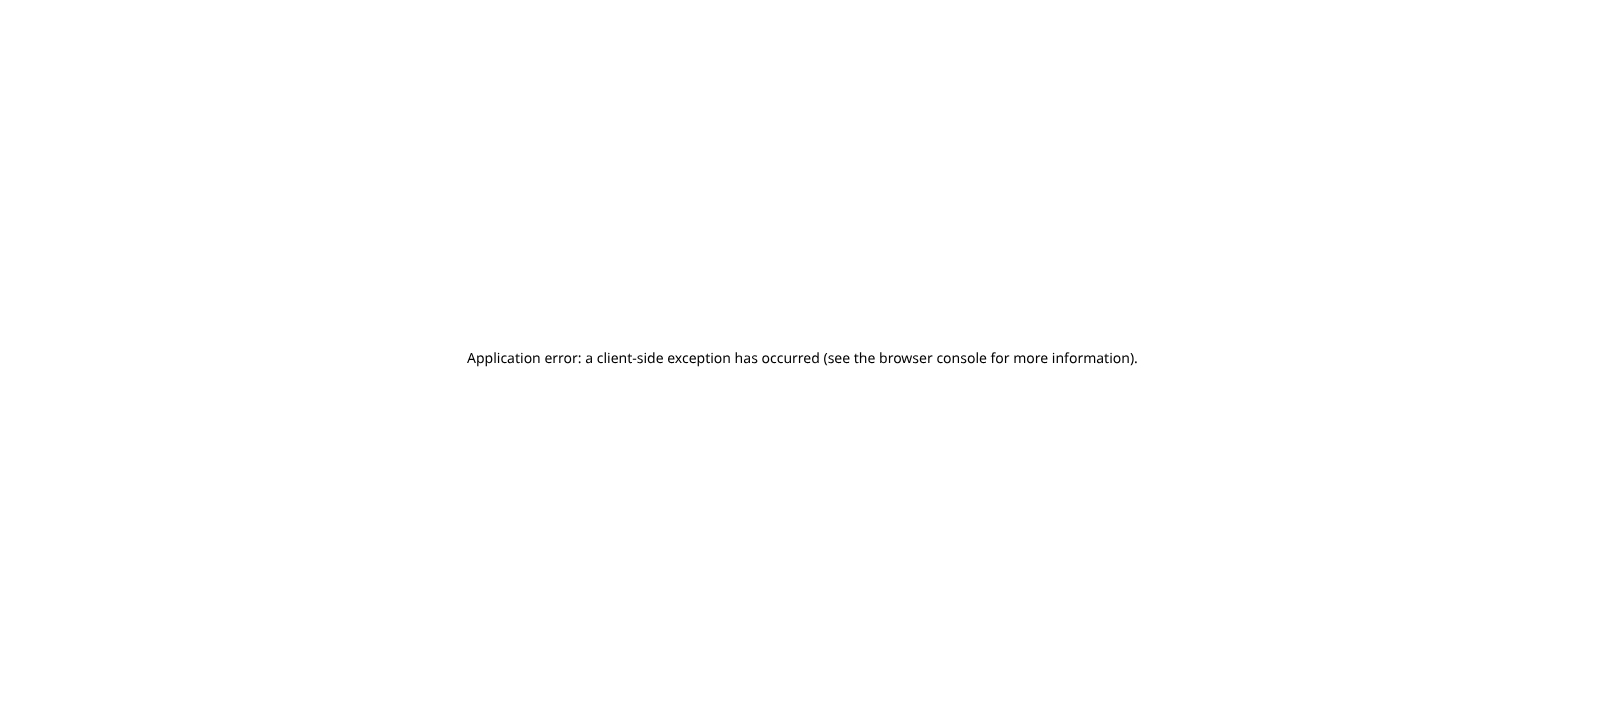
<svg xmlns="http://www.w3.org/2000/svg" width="1605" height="714">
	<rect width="100%" height="100%" fill="#FFFFFF" />
	<text x="467" y="363" font-family="Noto Sans" font-size="14" fill="#000000">Application error: a client-side exception has occurred (see the browser console for more information).</text>
</svg>
